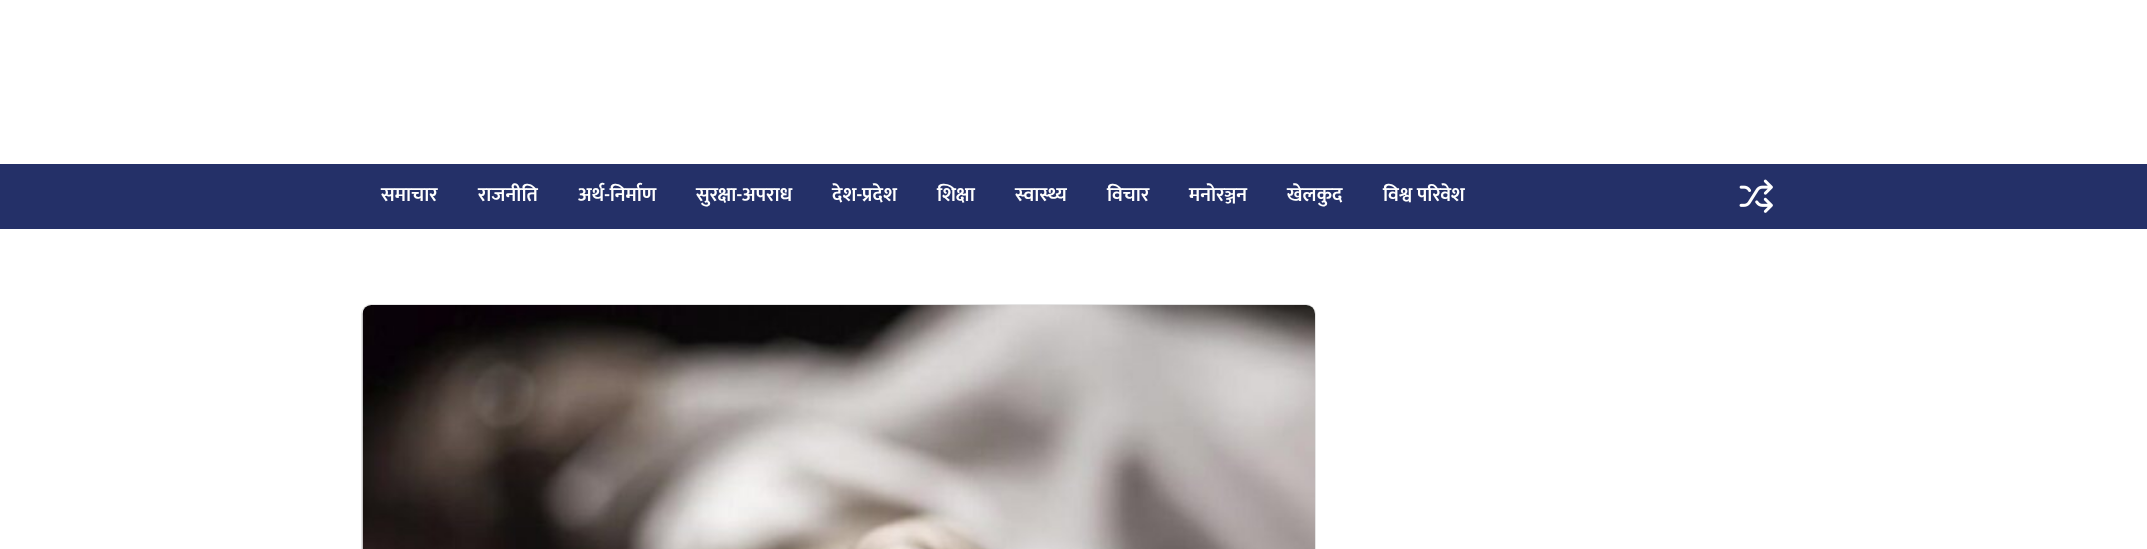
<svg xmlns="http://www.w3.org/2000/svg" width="2147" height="549">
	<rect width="100%" height="100%" fill="#FFFFFF" />
	<rect x="0" y="164" width="2147" height="65" fill="#243068" />
	<g font-family="Mukta" font-size="20" font-weight="600" fill="#FFFFFF">
		<text x="381" y="201">समाचार</text>
		<text x="478" y="201">राजनीति</text>
		<text x="578" y="201">अर्थ-निर्माण</text>
		<text x="696" y="201">सुरक्षा-अपराध</text>
		<text x="832" y="201">देश-प्रदेश</text>
		<text x="937" y="201">शिक्षा</text>
		<text x="1015" y="201">स्वास्थ्य</text>
		<text x="1107" y="201">विचार</text>
		<text x="1189" y="201">मनोरञ्जन</text>
		<text x="1287" y="201">खेलकुद</text>
		<text x="1383" y="201">विश्व परिवेश</text>
	</g>
	<image x="1739" y="179" width="34" height="34" href="assets/img1.png" />
	<rect x="361.5" y="304.5" width="954" height="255" rx="9.5" fill="none" stroke="#000000" stroke-opacity="0.1" />
	<image x="362" y="305" width="953" height="244" href="assets/img2.png" />
</svg>
